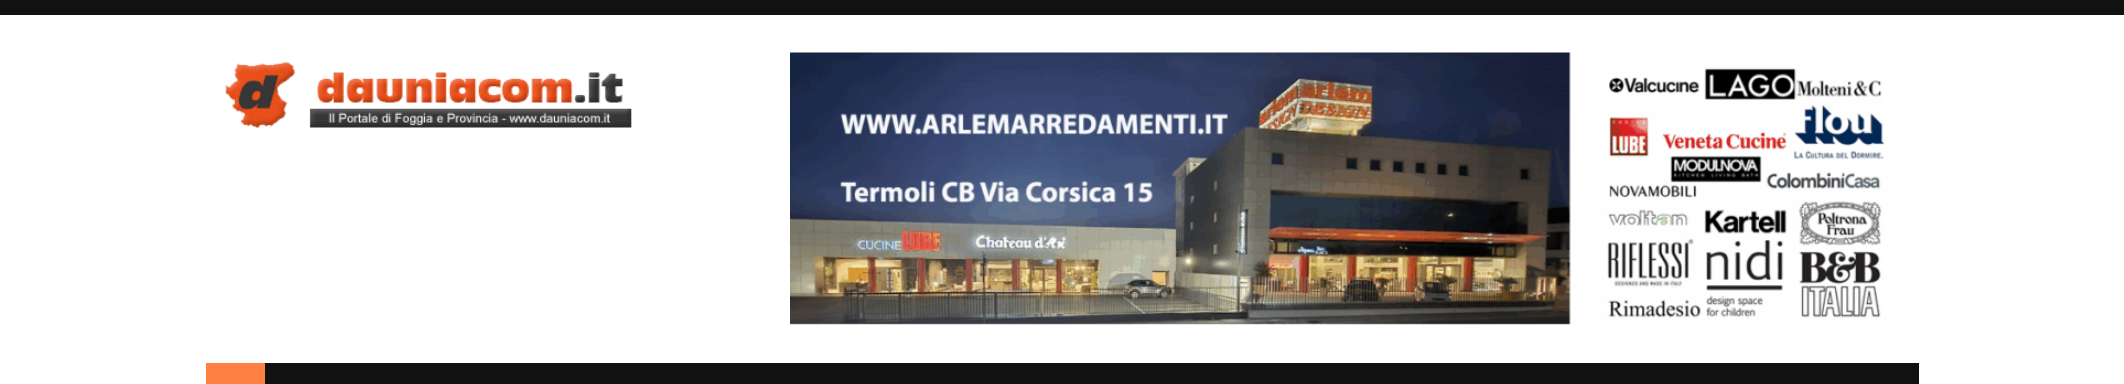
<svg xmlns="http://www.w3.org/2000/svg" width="2124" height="384">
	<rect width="100%" height="100%" fill="#FFFFFF" />
	<rect x="0" y="0" width="2124" height="15" fill="#111111" />
	<image x="225" y="62" width="407" height="67" href="assets/img1.png" />
	<image x="790" y="52" width="1095" height="273" href="assets/img2.png" />
	<rect x="265" y="363" width="1654" height="21" fill="#111111" />
	<rect x="206" y="363" width="59" height="21" fill="#FF8040" />
</svg>
